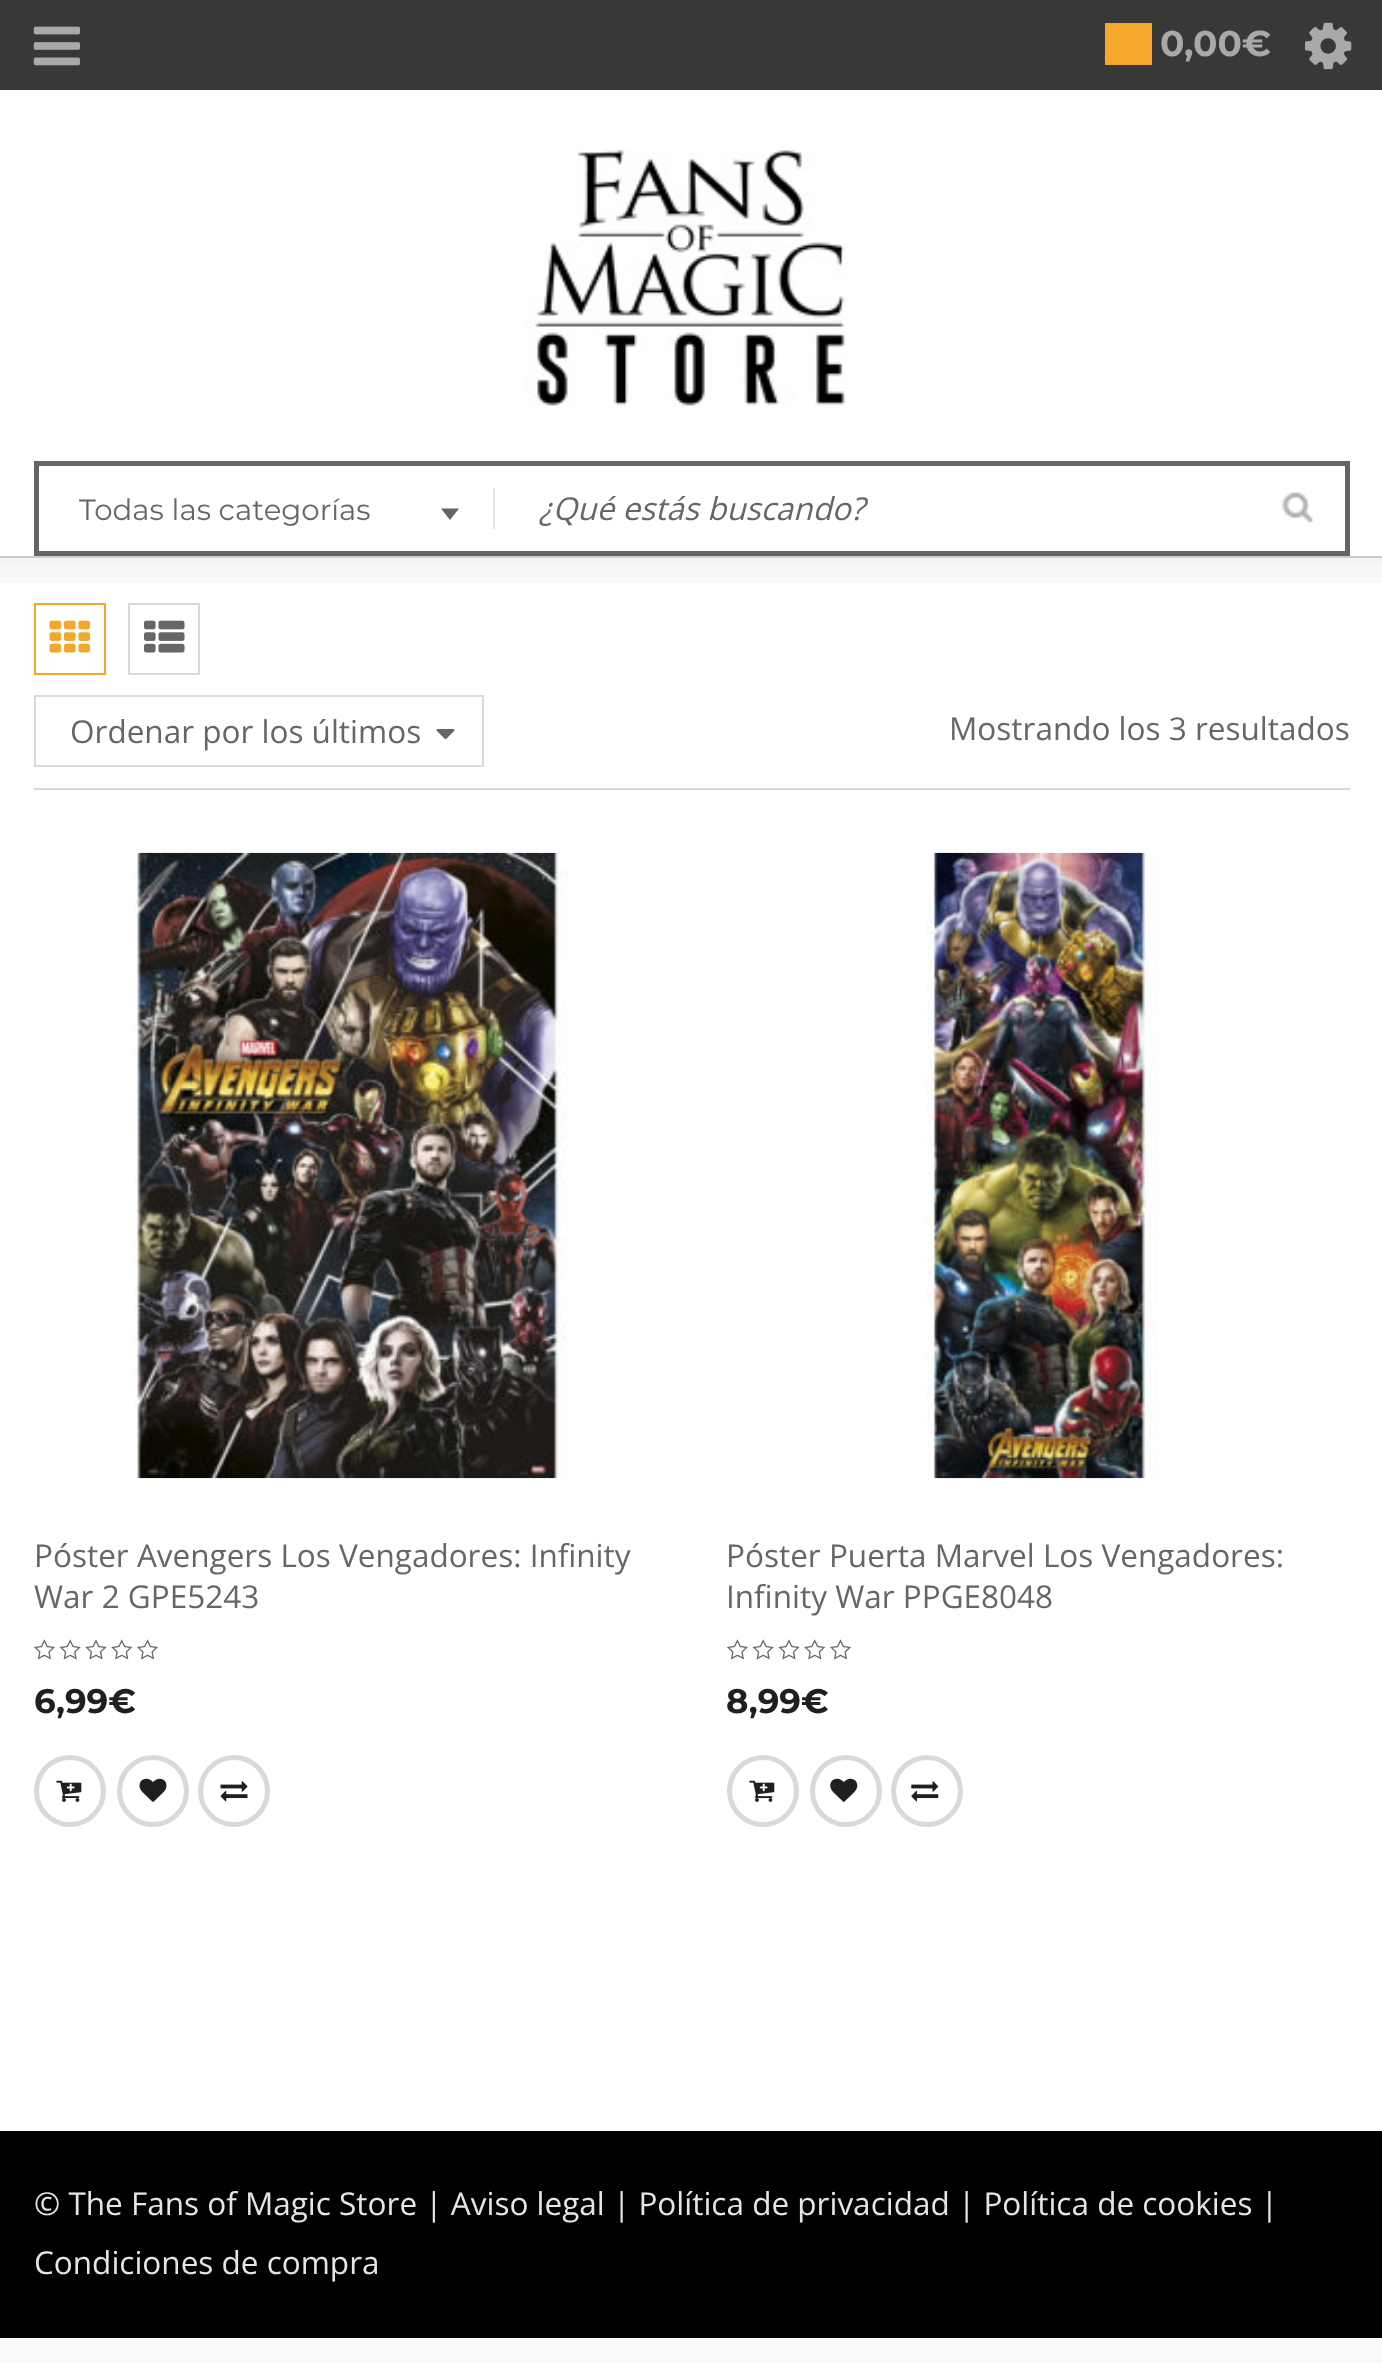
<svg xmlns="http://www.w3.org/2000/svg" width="1382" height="2363">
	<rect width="100%" height="100%" fill="#FAFAFA" />
	<rect x="0" y="90" width="1382" height="466" fill="#FFFFFF" />
	<rect x="0" y="0" width="1382" height="90" fill="#383838" />
	<image x="33" y="26" width="47" height="40" href="assets/img1.png" />
	<image x="1104" y="56" width="1" height="3" href="assets/img2.png" />
	<rect x="1105" y="23" width="47" height="42" fill="#F5A72C" />
	<text x="1160" y="56" font-family="Montserrat" font-size="36" font-weight="700" fill="#A9A9A9">0,00€</text>
	<image x="1305" y="22" width="47" height="48" href="assets/img3.png" />
	<image x="525" y="148" width="321" height="258" href="assets/img4.png" />
	<rect x="36.5" y="463.5" width="1311" height="90" fill="none" stroke="#656565" stroke-width="5" />
	<text x="79" y="520" font-family="Montserrat" font-size="29.25" fill="#666666">Todas las categorías</text>
	<rect x="493" y="488" width="2" height="41" fill="#E4E4E4" />
	<path d="M441 508.5H459L450 520Z" fill="#656565" />
	<text x="539" y="520" font-family="Open Sans" font-size="31.5" font-style="italic" fill="#666666">¿Qué estás buscando?</text>
	<image x="1282" y="492" width="32" height="31" href="assets/img5.png" />
	<rect x="0" y="556" width="1382" height="2" fill="#D9D9D9" />
	<rect x="0" y="558" width="1382" height="1573" fill="#FFFFFF" />
	<image x="0" y="556" width="1382" height="27" href="assets/img6.png" />
	<rect x="34" y="788" width="1316" height="2" fill="#D9D9D9" />
	<rect x="35" y="604" width="70" height="70" fill="none" stroke="#F5A72C" stroke-width="2" />
	<image x="49" y="620" width="41" height="33" href="assets/img7.png" />
	<rect x="129" y="604" width="70" height="70" fill="none" stroke="#D9D9D9" stroke-width="2" />
	<image x="144" y="620" width="41" height="33" href="assets/img8.png" />
	<rect x="35" y="696" width="448" height="70" fill="none" stroke="#D9D9D9" stroke-width="2" />
	<text x="70" y="743" font-family="Open Sans" font-size="31.5" fill="#666666">Ordenar por los últimos</text>
	<image x="436" y="729" width="19" height="11" href="assets/img9.png" />
	<text x="949" y="740" font-family="Open Sans" font-size="31.5" fill="#666666">Mostrando los 3 resultados</text>
	<image x="134" y="852" width="434" height="627" href="assets/img10.png" />
	<g font-family="Open Sans" font-size="31.5" fill="#666666">
		<text x="34" y="1567">Póster Avengers Los Vengadores: Infinity</text>
		<text x="34" y="1608">War 2 GPE5243</text>
	</g>
	<image x="34" y="1639" width="124" height="21" href="assets/img11.png" />
	<text x="34" y="1713" font-family="Montserrat" font-size="34" font-weight="700" fill="#1F1F1F">6,99€</text>
	<circle cx="70" cy="1791" r="33.5" fill="none" stroke="#D9D9D9" stroke-width="5" />
	<image x="56" y="1780" width="26" height="22" href="assets/img12.png" />
	<circle cx="153" cy="1791" r="33.5" fill="none" stroke="#D9D9D9" stroke-width="5" />
	<image x="139" y="1778" width="28" height="24" href="assets/img13.png" />
	<circle cx="234" cy="1791" r="33.5" fill="none" stroke="#D9D9D9" stroke-width="5" />
	<image x="220" y="1781" width="28" height="21" href="assets/img14.png" />
	<image x="926" y="852" width="233" height="627" href="assets/img15.png" />
	<g font-family="Open Sans" font-size="31.5" fill="#666666">
		<text x="726" y="1567">Póster Puerta Marvel Los Vengadores:</text>
		<text x="726" y="1608">Infinity War PPGE8048</text>
	</g>
	<image x="727" y="1639" width="124" height="21" href="assets/img11.png" />
	<text x="726" y="1713" font-family="Montserrat" font-size="34" font-weight="700" fill="#1F1F1F">8,99€</text>
	<circle cx="763" cy="1791" r="33.5" fill="none" stroke="#D9D9D9" stroke-width="5" />
	<image x="749" y="1780" width="26" height="22" href="assets/img12.png" />
	<circle cx="846" cy="1791" r="33.5" fill="none" stroke="#D9D9D9" stroke-width="5" />
	<image x="830" y="1778" width="28" height="24" href="assets/img16.png" />
	<circle cx="927" cy="1791" r="33.5" fill="none" stroke="#D9D9D9" stroke-width="5" />
	<image x="911" y="1781" width="28" height="21" href="assets/img17.png" />
	<rect x="0" y="2131" width="1382" height="207" fill="#000000" />
	<g font-family="Open Sans" font-size="31.5" fill="#E5E5E5">
		<text x="34" y="2215">© The Fans of Magic Store | Aviso legal | Política de privacidad | Política de cookies |</text>
		<text x="34" y="2274">Condiciones de compra</text>
	</g>
</svg>
